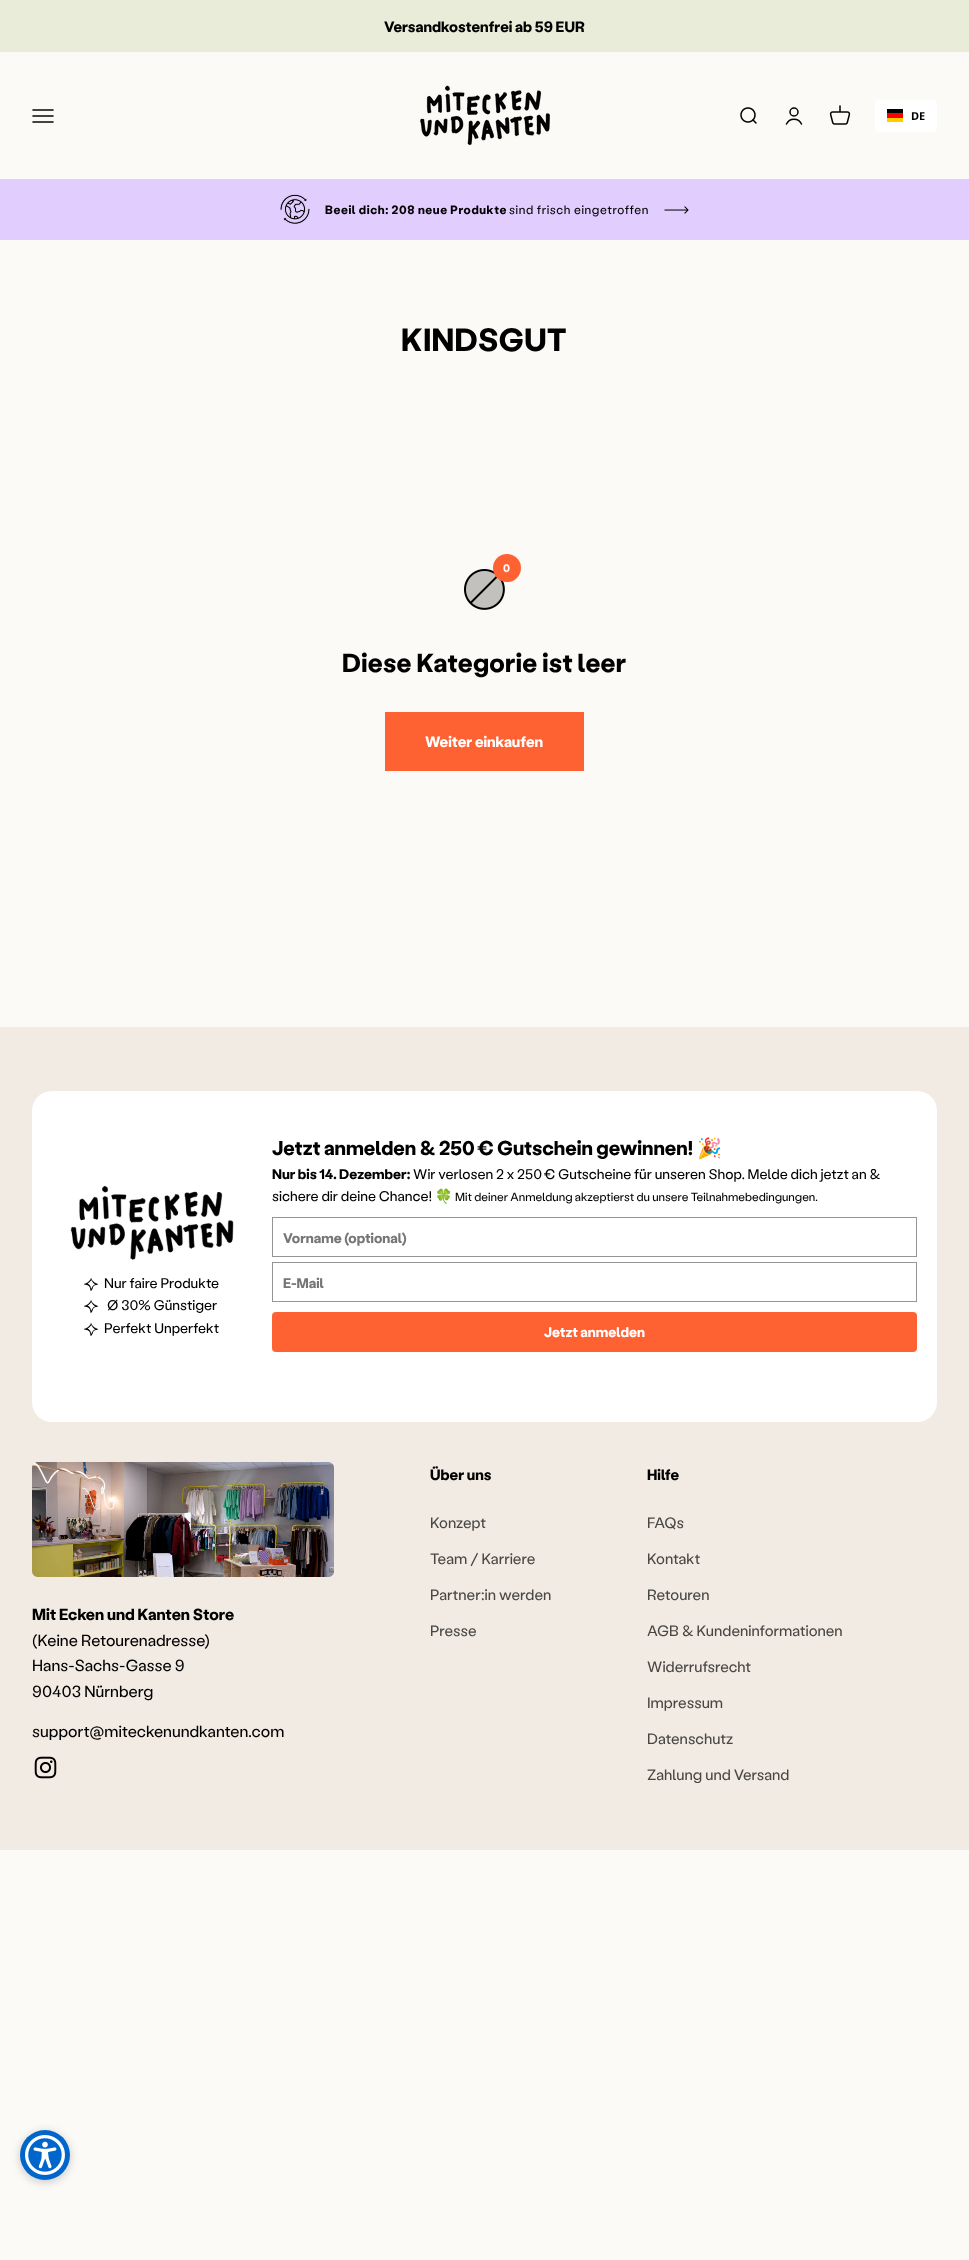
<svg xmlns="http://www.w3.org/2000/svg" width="969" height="2260">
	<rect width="100%" height="100%" fill="#FBFAF6" />
	<rect x="0" y="0" width="969" height="52" fill="#E8ECD8" />
	<text x="384" y="32" font-family="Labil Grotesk" font-size="15" font-weight="700" fill="#000000">Versandkostenfrei ab 59 EUR</text>
	<image x="32" y="109" width="22" height="14" href="assets/img1.png" />
	<image x="420" y="85" width="130" height="61" href="assets/img2.png" />
	<image x="740" y="107" width="17" height="17" href="assets/img3.png" />
	<circle cx="794" cy="112" r="4" fill="none" stroke="#000000" stroke-width="1.5" />
	<path d="M786.5 124C789.5 117.5 798.5 117.5 801.5 124" fill="none" stroke="#000000" stroke-width="1.5" stroke-linecap="round" />
	<image x="829" y="105" width="22" height="20" href="assets/img4.png" />
	<rect x="875" y="100" width="62" height="32" rx="4" fill="#FFFFFF" />
	<rect x="887" y="118" width="16" height="4" fill="#FFCC00" />
	<rect x="887" y="109" width="16" height="4" fill="#000001" />
	<rect x="887" y="113" width="16" height="5" fill="#FF0000" />
	<text x="911" y="120" font-family="Noto Sans" font-size="11" font-weight="700" fill="#000000">DE</text>
	<rect x="0" y="179" width="969" height="61" fill="#E2CDFF" />
	<image x="280" y="194" width="30" height="30" href="assets/img5.png" />
	<text x="325" y="214" font-family="Labil Grotesk" font-size="12" font-weight="700" letter-spacing="0.6" fill="#000000">Beeil dich: 208 neue Produkte</text>
	<text x="509" y="214" font-family="Labil Grotesk" font-size="12" letter-spacing="0.6" fill="#000000">sind frisch eingetroffen</text>
	<image x="664" y="206" width="25" height="8" href="assets/img6.png" />
	<text x="401" y="351" font-family="Labil Grotesk" font-size="32" font-weight="700" letter-spacing="0.25" fill="#000000">KINDSGUT</text>
	<image x="464" y="569" width="41" height="41" href="assets/img7.png" />
	<circle cx="507" cy="568" r="14" fill="#FE6232" />
	<text x="503" y="572" font-family="Labil Grotesk" font-size="11" font-weight="700" fill="#FFFFFF">0</text>
	<text x="342" y="672" font-family="Labil Grotesk" font-size="26" font-weight="700" letter-spacing="0.25" fill="#000000">Diese Kategorie ist leer</text>
	<rect x="385" y="712" width="199" height="59" fill="#FE6232" />
	<text x="425" y="747" font-family="Labil Grotesk" font-size="15" font-weight="700" fill="#FFFFFF">Weiter einkaufen</text>
	<rect x="0" y="1027" width="969" height="823" fill="#F2EBE3" />
	<rect x="32" y="1091" width="905" height="331" rx="20" fill="#FFFFFF" />
	<image x="70" y="1186" width="164" height="74" href="assets/img8.png" />
	<image x="84" y="1278" width="14" height="13" href="assets/img9.png" />
	<text x="104" y="1288" font-family="Labil Grotesk" font-size="14" fill="#000000">Nur faire Produkte</text>
	<image x="84" y="1300" width="14" height="13" href="assets/img9.png" />
	<text x="107" y="1310" font-family="Labil Grotesk" font-size="14" fill="#000000">Ø 30% Günstiger</text>
	<image x="84" y="1323" width="14" height="13" href="assets/img9.png" />
	<text x="104" y="1333" font-family="Labil Grotesk" font-size="14" fill="#000000">Perfekt Unperfekt</text>
	<text x="272" y="1155" font-family="Labil Grotesk" font-size="20" font-weight="700" fill="#000000">Jetzt anmelden &amp; 250 € Gutschein gewinnen!</text>
	<text x="697" y="1155" font-family="Noto Color Emoji" font-size="20" font-weight="700" fill="#000000">🎉</text>
	<text x="272" y="1179" font-family="Labil Grotesk" font-size="14" font-weight="700" fill="#000000">Nur bis 14. Dezember:</text>
	<g font-family="Labil Grotesk" font-size="14" fill="#000000">
		<text x="413" y="1179">Wir verlosen 2 x 250 € Gutscheine für unseren Shop. Melde dich jetzt an &amp;</text>
		<text x="272" y="1201">sichere dir deine Chance!</text>
	</g>
	<text x="435" y="1201" font-family="Noto Color Emoji" font-size="14" fill="#000000">🍀</text>
	<text x="455" y="1201" font-family="Labil Grotesk" font-size="11.7" fill="#000000">Mit deiner Anmeldung akzeptierst du unsere Teilnahmebedingungen.</text>
	<rect x="272.5" y="1217.5" width="644" height="39" fill="none" stroke="#949596" />
	<text x="283" y="1243" font-family="Labil Grotesk" font-size="14" font-weight="700" fill="#767676">Vorname (optional)</text>
	<rect x="272.5" y="1262.5" width="644" height="39" fill="none" stroke="#949596" />
	<text x="283" y="1288" font-family="Labil Grotesk" font-size="14" font-weight="700" fill="#767676">E-Mail</text>
	<rect x="272" y="1312" width="645" height="40" rx="4" fill="#FE6232" />
	<text x="544" y="1337" font-family="Labil Grotesk" font-size="14" font-weight="700" fill="#FFFFFF">Jetzt anmelden</text>
	<image x="32" y="1462" width="302" height="115" href="assets/img10.png" />
	<text x="32" y="1620" font-family="Labil Grotesk" font-size="16" font-weight="700" fill="#000000">Mit Ecken und Kanten Store</text>
	<g font-family="Labil Grotesk" font-size="16" fill="#000000">
		<text x="32" y="1646">(Keine Retourenadresse)</text>
		<text x="32" y="1671">Hans-Sachs-Gasse 9</text>
		<text x="32" y="1697">90403 Nürnberg</text>
		<text x="32" y="1737">support@miteckenundkanten.com</text>
	</g>
	<image x="34" y="1756" width="23" height="23" href="assets/img11.png" />
	<text x="430" y="1480" font-family="Labil Grotesk" font-size="15" font-weight="700" fill="#000000">Über uns</text>
	<g font-family="Labil Grotesk" font-size="15" fill="#494744">
		<text x="430" y="1528">Konzept</text>
		<text x="430" y="1564">Team / Karriere</text>
		<text x="430" y="1600">Partner:in werden</text>
		<text x="430" y="1636">Presse</text>
	</g>
	<text x="647" y="1480" font-family="Labil Grotesk" font-size="15" font-weight="700" fill="#000000">Hilfe</text>
	<g font-family="Labil Grotesk" font-size="15" fill="#494744">
		<text x="647" y="1528">FAQs</text>
		<text x="647" y="1564">Kontakt</text>
		<text x="647" y="1600">Retouren</text>
		<text x="647" y="1636">AGB &amp; Kundeninformationen</text>
		<text x="647" y="1672">Widerrufsrecht</text>
		<text x="647" y="1708">Impressum</text>
		<text x="647" y="1744">Datenschutz</text>
		<text x="647" y="1780">Zahlung und Versand</text>
	</g>
	<rect x="20" y="2132" width="50" height="50" rx="25" fill="#000000" fill-opacity="0.2" filter="blur(5px)" />
	<circle cx="45" cy="2155" r="25" fill="#0066CC" />
	<image x="25" y="2135" width="40" height="40" href="assets/img12.png" />
</svg>
